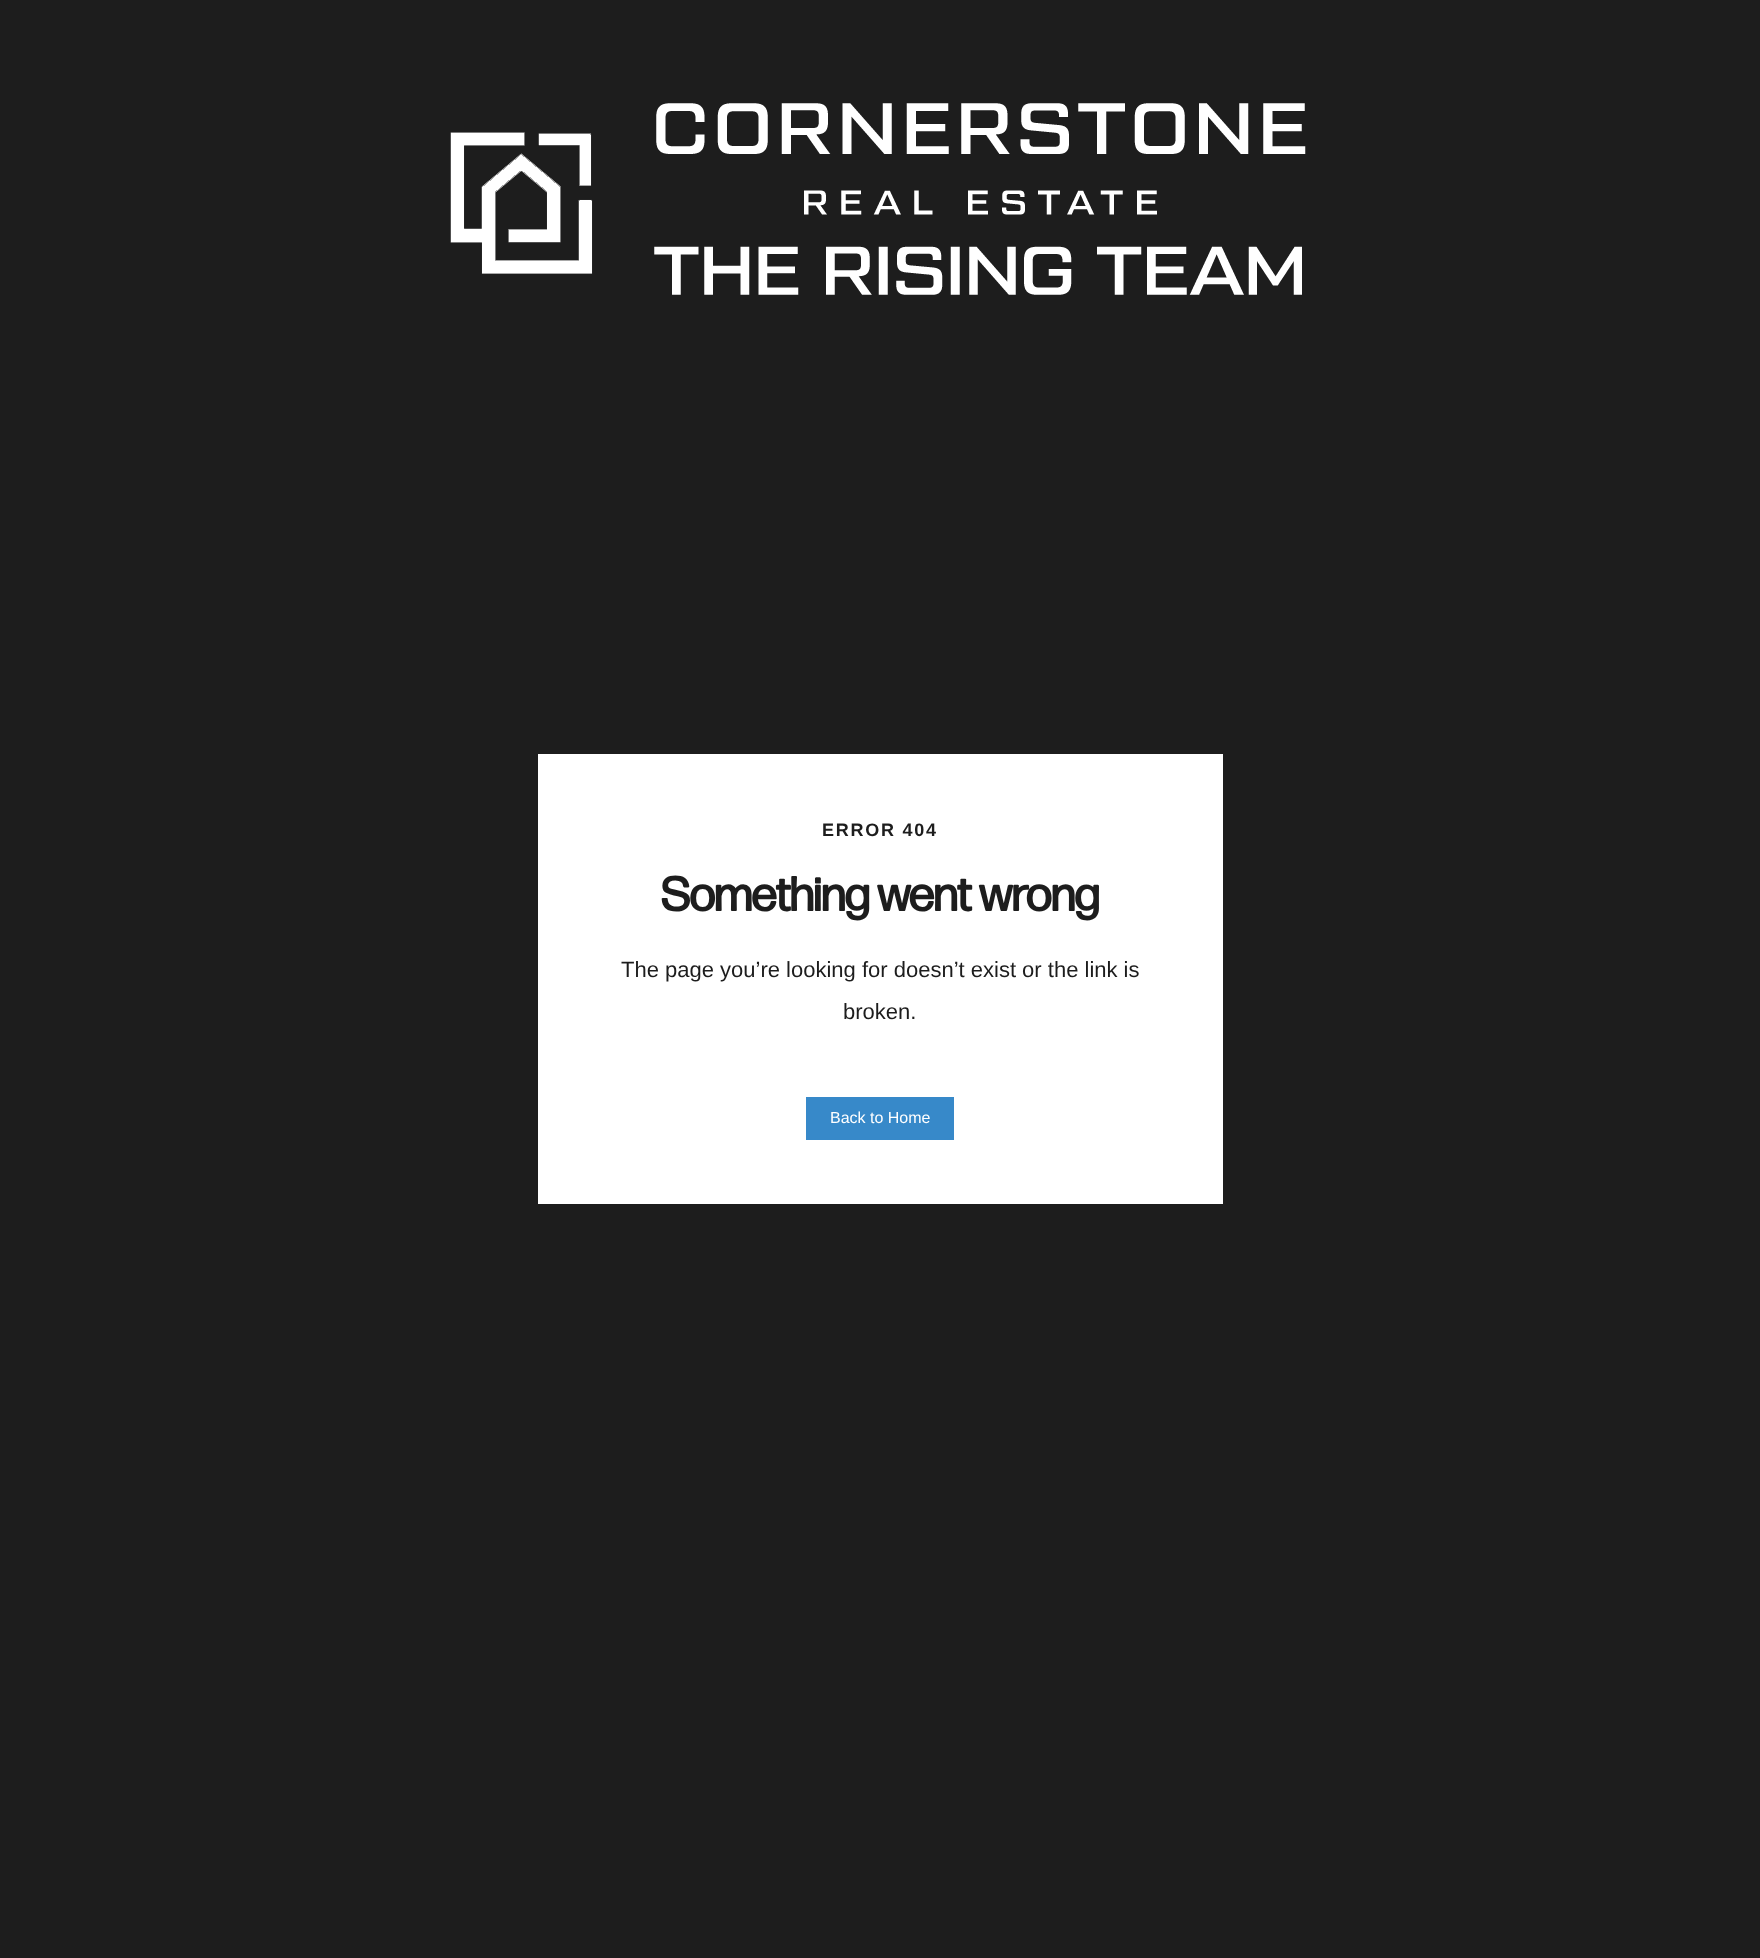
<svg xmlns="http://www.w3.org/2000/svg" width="1760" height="1958">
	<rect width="100%" height="100%" fill="#1D1D1D" />
	<image x="450" y="103" width="856" height="192" href="assets/img1.png" />
	<rect x="538" y="754" width="685" height="450" fill="#FFFFFF" />
	<text x="822" y="836" font-family="Liberation Sans" font-size="18" font-weight="700" letter-spacing="1.75" fill="#1D1D1D">ERROR 404</text>
	<text x="661" y="911" font-family="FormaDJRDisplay" font-size="48" font-weight="700" fill="#1D1D1D">Something went wrong</text>
	<g font-family="Liberation Sans" font-size="22" fill="#1D1D1D">
		<text x="621" y="977">The page you’re looking for doesn’t exist or the link is</text>
		<text x="843" y="1019">broken.</text>
	</g>
	<rect x="806" y="1097" width="148" height="43" fill="#3789C9" />
	<text x="830" y="1123" font-family="Liberation Sans" font-size="16" fill="#FFFFFF">Back to Home</text>
</svg>
